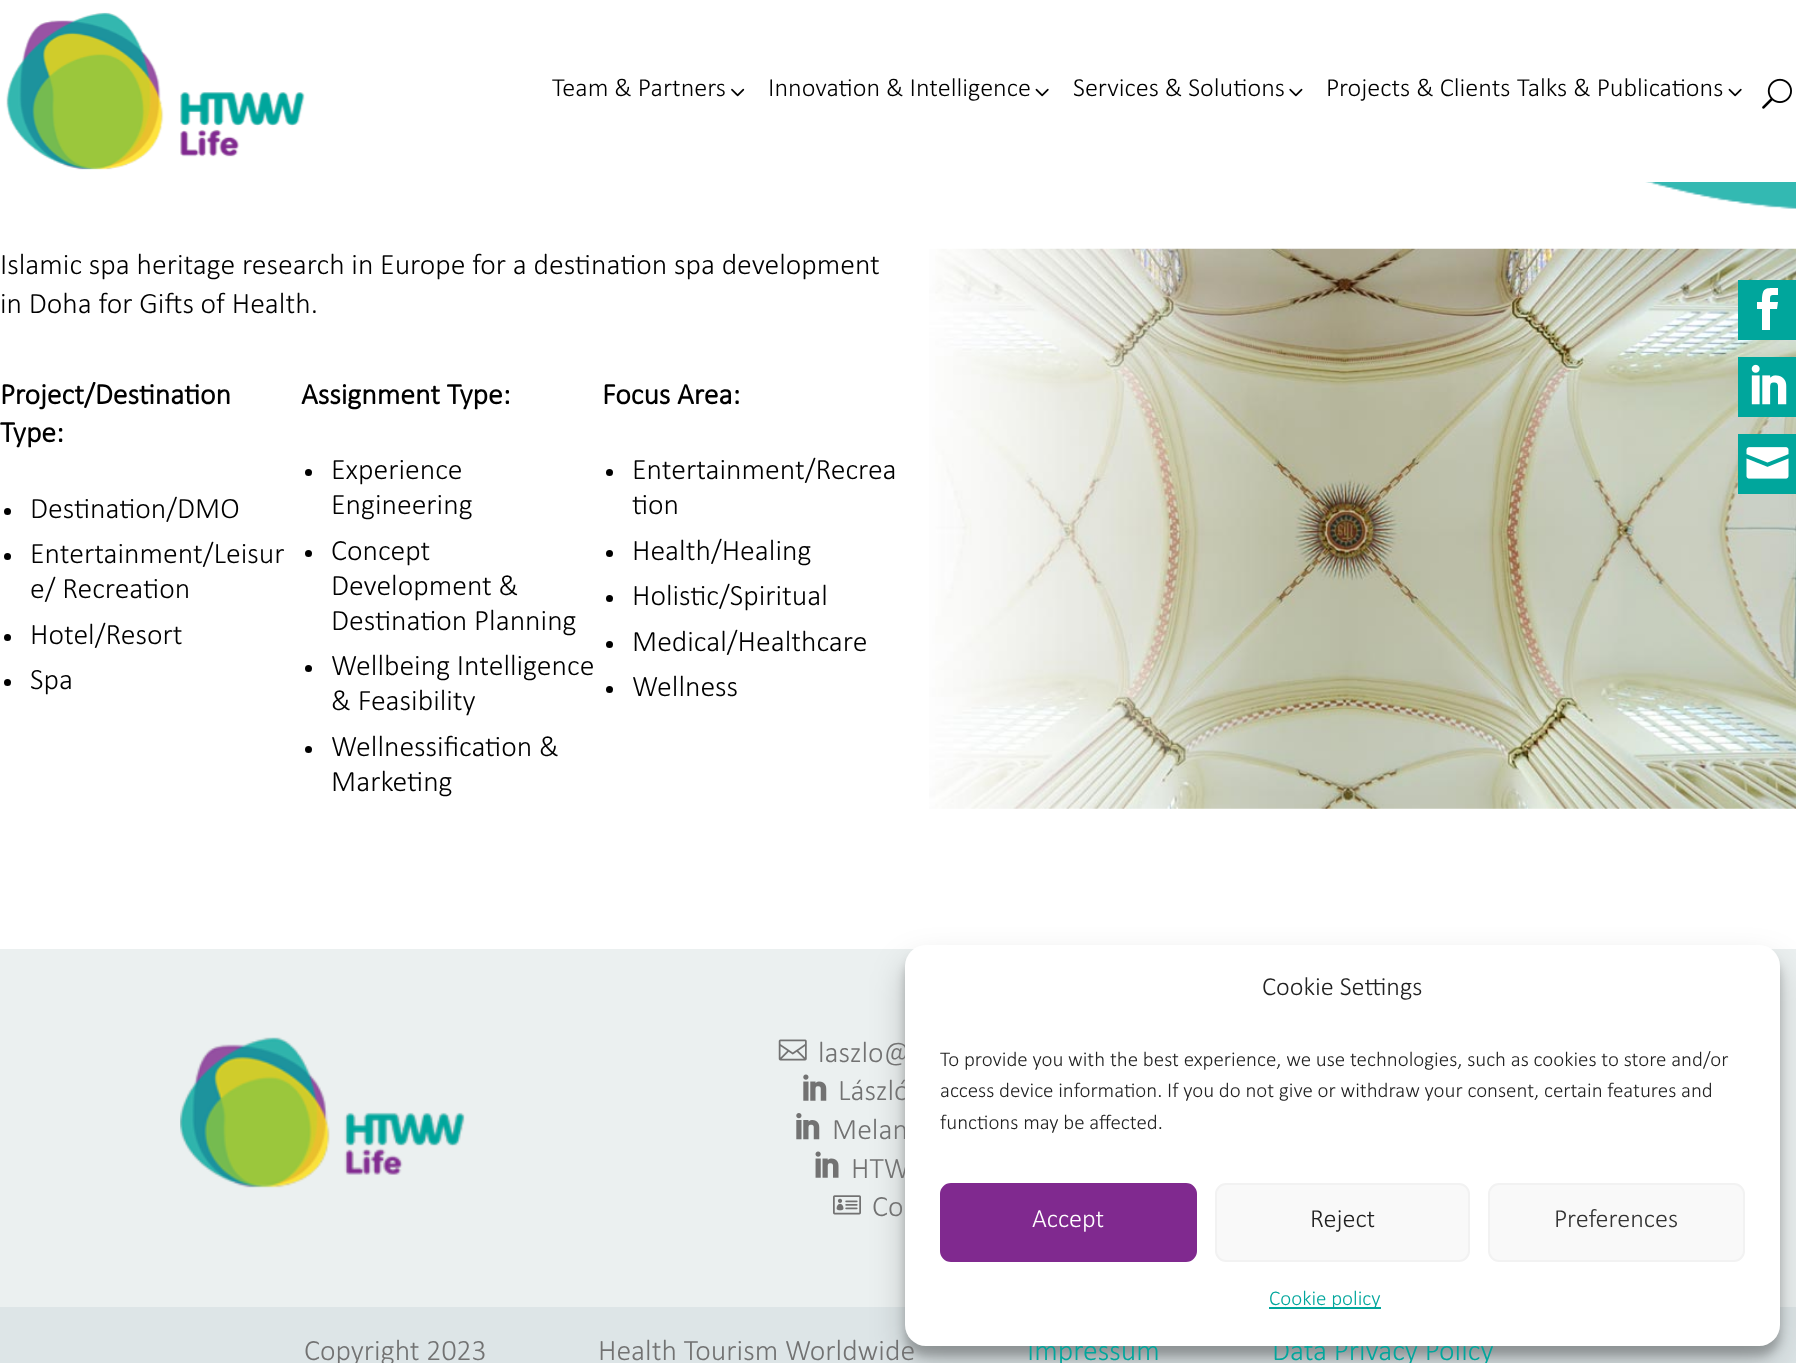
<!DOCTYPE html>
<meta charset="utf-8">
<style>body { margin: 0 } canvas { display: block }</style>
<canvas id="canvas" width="1796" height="1363"></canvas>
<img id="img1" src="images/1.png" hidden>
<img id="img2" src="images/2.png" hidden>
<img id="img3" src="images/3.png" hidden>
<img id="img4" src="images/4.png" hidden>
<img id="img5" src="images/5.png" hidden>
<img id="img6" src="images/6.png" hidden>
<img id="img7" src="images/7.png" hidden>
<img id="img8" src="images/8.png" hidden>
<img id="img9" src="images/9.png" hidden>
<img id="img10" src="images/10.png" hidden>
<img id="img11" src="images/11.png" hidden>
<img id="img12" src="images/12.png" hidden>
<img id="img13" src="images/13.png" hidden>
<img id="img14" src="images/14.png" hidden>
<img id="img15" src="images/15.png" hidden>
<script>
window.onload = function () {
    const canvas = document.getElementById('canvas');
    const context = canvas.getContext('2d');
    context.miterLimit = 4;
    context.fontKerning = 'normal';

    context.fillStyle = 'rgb(255, 255, 255)';
    context.fillRect(0, 0, 1796, 1363);
    context.drawImage(document.getElementById('img1'), 6, 12, 299, 158);
    context.drawImage(document.getElementById('img2'), 731, 88, 14, 9);
    context.drawImage(document.getElementById('img3'), 1035, 88, 14, 9);
    context.drawImage(document.getElementById('img4'), 1289, 88, 14, 9);
    context.drawImage(document.getElementById('img3'), 1728, 88, 14, 9);
    context.drawImage(document.getElementById('img5'), 1762, 78, 30, 31);
    context.drawImage(document.getElementById('img6'), 1645, 182, 151, 27);
    context.fillStyle = 'rgb(0, 0, 0)';
    context.beginPath();
    context.arc(7.5, 511.5, 3.5, 0, 2 * Math.PI);
    context.fill();
    context.beginPath();
    context.arc(7.5, 556.5, 3.5, 0, 2 * Math.PI);
    context.fill();
    context.beginPath();
    context.arc(7.5, 637.5, 3.5, 0, 2 * Math.PI);
    context.fill();
    context.beginPath();
    context.arc(7.5, 682.5, 3.5, 0, 2 * Math.PI);
    context.fill();
    context.beginPath();
    context.arc(308.5, 472.5, 3.5, 0, 2 * Math.PI);
    context.fill();
    context.beginPath();
    context.arc(308.5, 553.5, 3.5, 0, 2 * Math.PI);
    context.fill();
    context.beginPath();
    context.arc(308.5, 668.5, 3.5, 0, 2 * Math.PI);
    context.fill();
    context.beginPath();
    context.arc(308.5, 749.5, 3.5, 0, 2 * Math.PI);
    context.fill();
    context.beginPath();
    context.arc(609.5, 472.5, 3.5, 0, 2 * Math.PI);
    context.fill();
    context.beginPath();
    context.arc(609.5, 553.5, 3.5, 0, 2 * Math.PI);
    context.fill();
    context.beginPath();
    context.arc(609.5, 598.5, 3.5, 0, 2 * Math.PI);
    context.fill();
    context.beginPath();
    context.arc(609.5, 644.5, 3.5, 0, 2 * Math.PI);
    context.fill();
    context.beginPath();
    context.arc(609.5, 689.5, 3.5, 0, 2 * Math.PI);
    context.fill();
    context.drawImage(document.getElementById('img7'), 929, 248, 867, 561);
    context.fillStyle = 'rgb(0, 166, 156)';
    context.fillRect(1738, 280, 58, 60);
    context.fillStyle = 'rgb(255, 255, 255)';
    context.beginPath();
    context.moveTo(1762, 330);
    context.lineTo(1770, 330);
    context.lineTo(1770, 309);
    context.lineTo(1777, 309);
    context.lineTo(1778, 302);
    context.lineTo(1770, 302);
    context.bezierCurveTo(1770, 294, 1770, 295, 1778, 295);
    context.lineTo(1778, 288);
    context.bezierCurveTo(1765, 288, 1762, 287, 1762, 302);
    context.lineTo(1757, 302);
    context.lineTo(1757, 309);
    context.lineTo(1762, 309);
    context.closePath();
    context.fill();
    context.fillStyle = 'rgb(0, 166, 156)';
    context.fillRect(1738, 357, 58, 60);
    context.drawImage(document.getElementById('img8'), 1751, 364, 36, 41);
    context.fillRect(1738, 434, 58, 60);
    context.drawImage(document.getElementById('img9'), 1746, 447, 43, 32);
    context.fillStyle = 'rgb(235, 240, 240)';
    context.fillRect(0, 949, 1796, 358);
    context.drawImage(document.getElementById('img10'), 180, 1037, 285, 151);
    context.drawImage(document.getElementById('img11'), 778, 1039, 29, 22);
    context.drawImage(document.getElementById('img12'), 803, 1074, 24, 27);
    context.drawImage(document.getElementById('img13'), 796, 1113, 24, 27);
    context.drawImage(document.getElementById('img14'), 815, 1151, 24, 27);
    context.drawImage(document.getElementById('img15'), 833, 1195, 28, 20);
    context.fillStyle = 'rgb(221, 229, 231)';
    context.fillRect(0, 1307, 1796, 56);
    context.fillStyle = 'rgba(0, 0, 0, 0.23)';
    context.filter = 'blur(5px)';
    context.beginPath();
    context.roundRect(905, 956, 875, 400, 21);
    context.fill();
    context.filter = 'none';
    context.fillStyle = 'rgba(0, 0, 0, 0.19)';
    context.filter = 'blur(17.5px)';
    context.beginPath();
    context.roundRect(905, 963, 875, 400, 21);
    context.fill();
    context.filter = 'none';
    context.font = '300 26.25px Calibri';
    context.fillStyle = 'rgb(0, 0, 0)';
    context.fillText('Team & Partners', 552, 96);
    context.fillText('Innovation & Intelligence', 768, 96);
    context.fillText('Services & Solutions', 1073, 96);
    context.fillText('Projects & Clients', 1326, 96);
    context.fillText('Talks & Publications', 1517, 96);
    context.font = '300 29.75px Calibri';
    context.fillText('Islamic spa heritage research in Europe for a destination spa development', 0, 274);
    context.fillText('in Doha for Gifts of Health.', 0, 313);
    context.font = 'bold 29.75px Calibri';
    context.fillText('Project/Destination', 0, 404);
    context.fillText('Type:', 0, 442);
    context.font = '300 29.75px Calibri';
    context.fillText('Destination/DMO', 30, 518);
    context.fillText('Entertainment/Leisur', 30, 563);
    context.fillText('e/ Recreation', 30, 598);
    context.fillText('Hotel/Resort', 30, 644);
    context.fillText('Spa', 30, 689);
    context.font = 'bold 29.75px Calibri';
    context.fillText('Assignment Type:', 301, 404);
    context.font = '300 29.75px Calibri';
    context.fillText('Experience', 331, 479);
    context.fillText('Engineering', 331, 514);
    context.fillText('Concept', 331, 560);
    context.fillText('Development &', 331, 595);
    context.fillText('Destination Planning', 331, 630);
    context.fillText('Wellbeing Intelligence', 331, 675);
    context.fillText('& Feasibility', 331, 710);
    context.fillText('Wellnessification &', 331, 756);
    context.fillText('Marketing', 331, 791);
    context.font = 'bold 29.75px Calibri';
    context.fillText('Focus Area:', 602, 404);
    context.font = '300 29.75px Calibri';
    context.fillText('Entertainment/Recrea', 632, 479);
    context.fillText('tion', 632, 514);
    context.fillText('Health/Healing', 632, 560);
    context.fillText('Holistic/Spiritual', 632, 605);
    context.fillText('Medical/Healthcare', 632, 651);
    context.fillText('Wellness', 632, 696);
    context.fillStyle = 'rgb(114, 114, 114)';
    context.fillText('laszlo@', 818, 1062);
    context.fillText('László', 838, 1100);
    context.fillText('Melan', 832, 1139);
    context.fillText('HTW', 851, 1178);
    context.fillText('Co', 872, 1216);
    context.fillText('Copyright 2023', 304, 1360);
    context.fillText('Health Tourism Worldwide', 598, 1360);
    context.fillStyle = 'rgb(0, 166, 156)';
    context.fillText('Impressum', 1027, 1360);
    context.fillText('Data Privacy Policy', 1272, 1360);
    context.fillStyle = 'rgb(255, 255, 255)';
    context.beginPath();
    context.roundRect(905, 945, 875, 401, 21);
    context.fill();
    context.font = '300 26.25px Calibri';
    context.fillStyle = 'rgb(34, 34, 34)';
    context.fillText('Cookie Settings', 1262, 995);
    context.font = '300 21px Calibri';
    context.fillText('To provide you with the best experience, we use technologies, such as cookies to store and/or', 940, 1066);
    context.fillText('access device information. If you do not give or withdraw your consent, certain features and', 940, 1097);
    context.fillText('functions may be affected.', 940, 1129);
    context.fillStyle = 'rgb(128, 41, 143)';
    context.beginPath();
    context.roundRect(941, 1184, 255, 77, 10);
    context.fill();
    context.strokeStyle = 'rgb(128, 41, 143)';
    context.lineWidth = 2;
    context.stroke();
    context.font = '300 26.25px Calibri';
    context.fillStyle = 'rgb(255, 255, 255)';
    context.fillText('Accept', 1032, 1227);
    context.fillStyle = 'rgb(249, 249, 249)';
    context.beginPath();
    context.roundRect(1216, 1184, 253, 77, 10);
    context.fill();
    context.strokeStyle = 'rgb(242, 242, 242)';
    context.stroke();
    context.fillStyle = 'rgb(34, 34, 34)';
    context.fillText('Reject', 1310, 1227);
    context.fillStyle = 'rgb(249, 249, 249)';
    context.beginPath();
    context.roundRect(1489, 1184, 255, 77, 10);
    context.fill();
    context.stroke();
    context.fillStyle = 'rgb(51, 51, 51)';
    context.fillText('Preferences', 1554, 1227);
    context.fillStyle = 'rgb(0, 166, 156)';
    context.fillRect(1269, 1307, 112, 2);
    context.font = '300 21px Calibri';
    context.fillText('Cookie policy', 1269, 1305);
};
</script>
